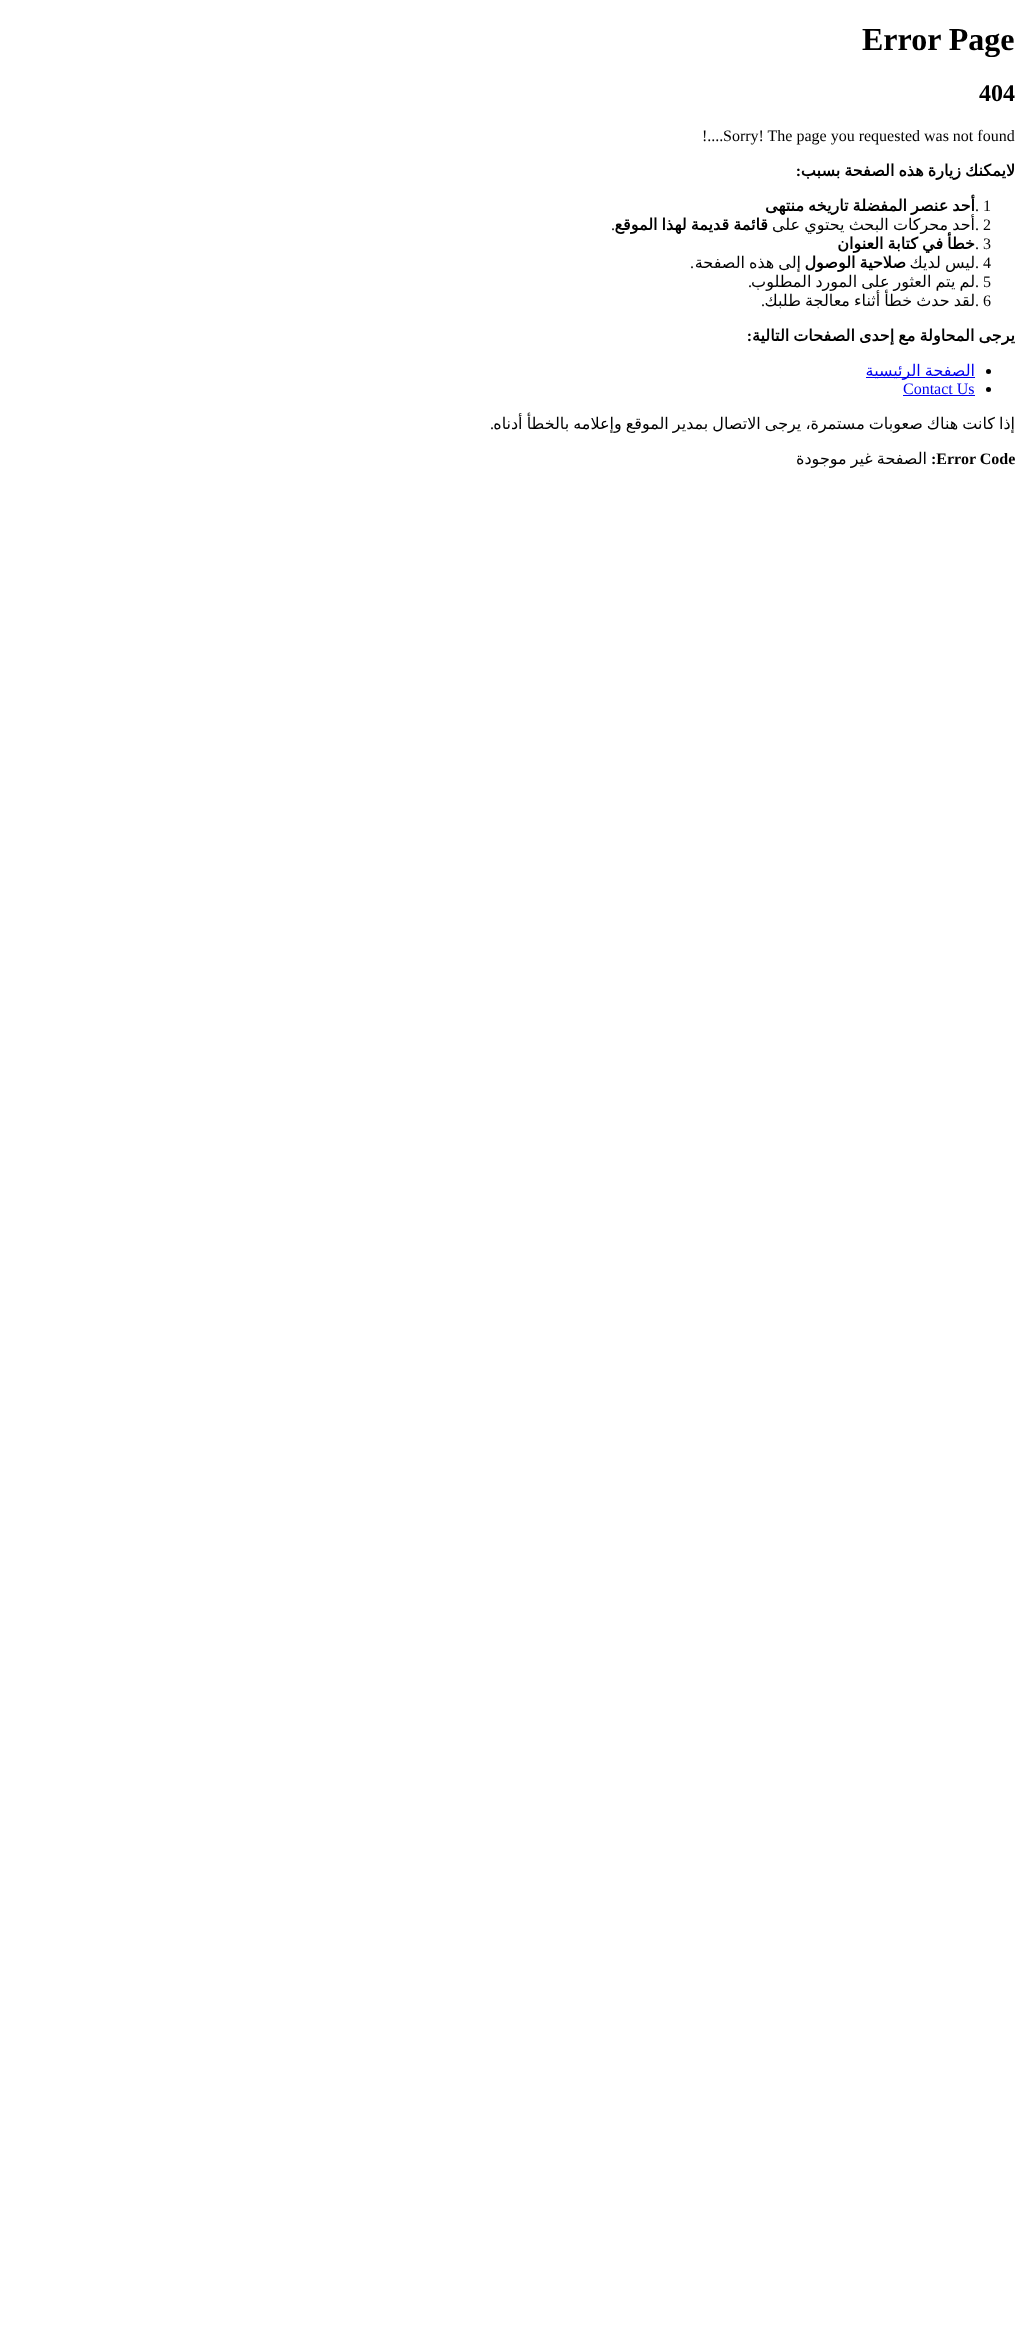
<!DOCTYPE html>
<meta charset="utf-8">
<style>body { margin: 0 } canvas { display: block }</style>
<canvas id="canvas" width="1023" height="2331"></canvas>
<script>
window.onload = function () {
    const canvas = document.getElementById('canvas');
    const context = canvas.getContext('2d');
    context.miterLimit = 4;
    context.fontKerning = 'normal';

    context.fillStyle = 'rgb(255, 255, 255)';
    context.fillRect(0, 0, 1023, 2331);
    context.fillStyle = 'rgb(0, 0, 0)';
    context.beginPath();
    context.arc(988.5, 371.5, 2.5, 0, 2 * Math.PI);
    context.fill();
    context.fillStyle = 'rgb(0, 0, 238)';
    context.fillRect(866, 377, 109, 1);
    context.fillStyle = 'rgb(0, 0, 0)';
    context.beginPath();
    context.arc(988.5, 389.5, 2.5, 0, 2 * Math.PI);
    context.fill();
    context.fillStyle = 'rgb(0, 0, 238)';
    context.fillRect(903, 395, 72, 1);
    context.font = 'bold 32px Liberation Serif';
    context.fillStyle = 'rgb(0, 0, 0)';
    context.fillText('Error Page', 862, 50);
    context.font = 'bold 24px Liberation Serif';
    context.fillText('404', 979, 101);
    context.font = '16px Liberation Serif';
    context.fillText('Sorry! The page you requested was not found', 723, 141);
    context.fillText('!....', 702, 141);
    context.wordSpacing = '-1px';
    context.direction = 'rtl';
    context.font = 'bold 16px DejaVu Sans';
    context.fillText('لايمكنك زيارة هذه الصفحة بسبب', 1015, 176);
    context.wordSpacing = '0px';
    context.font = 'bold 16px Liberation Serif';
    context.fillText(':', 801, 176);
    context.direction = 'ltr';
    context.font = '16px Liberation Serif';
    context.fillText('. 1', 975, 211);
    context.wordSpacing = '-1px';
    context.direction = 'rtl';
    context.font = 'bold 16px DejaVu Sans';
    context.fillText('أحد عنصر المفضلة تاريخه منتهى', 975, 211);
    context.wordSpacing = '0px';
    context.direction = 'ltr';
    context.font = '16px Liberation Serif';
    context.fillText('. 2', 975, 230);
    context.wordSpacing = '-1px';
    context.direction = 'rtl';
    context.font = '16px DejaVu Sans';
    context.fillText('أحد محركات البحث يحتوي على', 975, 230);
    context.font = 'bold 16px DejaVu Sans';
    context.fillText('قائمة قديمة لهذا الموقع', 768, 230);
    context.wordSpacing = '0px';
    context.direction = 'ltr';
    context.font = '16px Liberation Serif';
    context.fillText('.', 611, 230);
    context.fillText('. 3', 975, 249);
    context.wordSpacing = '-1px';
    context.direction = 'rtl';
    context.font = 'bold 16px DejaVu Sans';
    context.fillText('خطأ في كتابة العنوان', 975, 249);
    context.wordSpacing = '0px';
    context.direction = 'ltr';
    context.font = '16px Liberation Serif';
    context.fillText('. 4', 975, 268);
    context.wordSpacing = '-1px';
    context.direction = 'rtl';
    context.font = '16px DejaVu Sans';
    context.fillText('ليس لديك', 975, 268);
    context.font = 'bold 16px DejaVu Sans';
    context.fillText('صلاحية الوصول', 906, 268);
    context.font = '16px DejaVu Sans';
    context.fillText('إلى هذه الصفحة', 801, 268);
    context.wordSpacing = '0px';
    context.font = '16px Liberation Serif';
    context.fillText('.', 694, 268);
    context.direction = 'ltr';
    context.fillText('. 5', 975, 287);
    context.wordSpacing = '-1px';
    context.direction = 'rtl';
    context.font = '16px DejaVu Sans';
    context.fillText('لم يتم العثور على المورد المطلوب', 975, 287);
    context.wordSpacing = '0px';
    context.font = '16px Liberation Serif';
    context.fillText('.', 752, 287);
    context.direction = 'ltr';
    context.fillText('. 6', 975, 306);
    context.wordSpacing = '-1px';
    context.direction = 'rtl';
    context.font = '16px DejaVu Sans';
    context.fillText('لقد حدث خطأ أثناء معالجة طلبك', 975, 306);
    context.wordSpacing = '0px';
    context.font = '16px Liberation Serif';
    context.fillText('.', 765, 306);
    context.wordSpacing = '-1px';
    context.font = 'bold 16px DejaVu Sans';
    context.fillText('يرجى المحاولة مع إحدى الصفحات التالية', 1015, 341);
    context.wordSpacing = '0px';
    context.font = 'bold 16px Liberation Serif';
    context.fillText(':', 752, 341);
    context.wordSpacing = '-1px';
    context.font = '16px DejaVu Sans';
    context.fillStyle = 'rgb(0, 0, 238)';
    context.fillText('الصفحة الرئيسية', 975, 376);
    context.wordSpacing = '0px';
    context.direction = 'ltr';
    context.font = '16px Liberation Serif';
    context.fillText('Contact Us', 903, 394);
    context.wordSpacing = '-1px';
    context.direction = 'rtl';
    context.font = '16px DejaVu Sans';
    context.fillStyle = 'rgb(0, 0, 0)';
    context.fillText('إذا كانت هناك صعوبات مستمرة، يرجى الاتصال بمدير الموقع وإعلامه بالخطأ أدناه', 1015, 429);
    context.wordSpacing = '0px';
    context.font = '16px Liberation Serif';
    context.fillText('.', 494, 429);
    context.direction = 'ltr';
    context.font = 'bold 16px Liberation Serif';
    context.fillText(':Error Code', 931, 464);
    context.wordSpacing = '-1px';
    context.direction = 'rtl';
    context.font = '16px DejaVu Sans';
    context.fillText('الصفحة غير موجودة', 927, 464);
};
</script>
